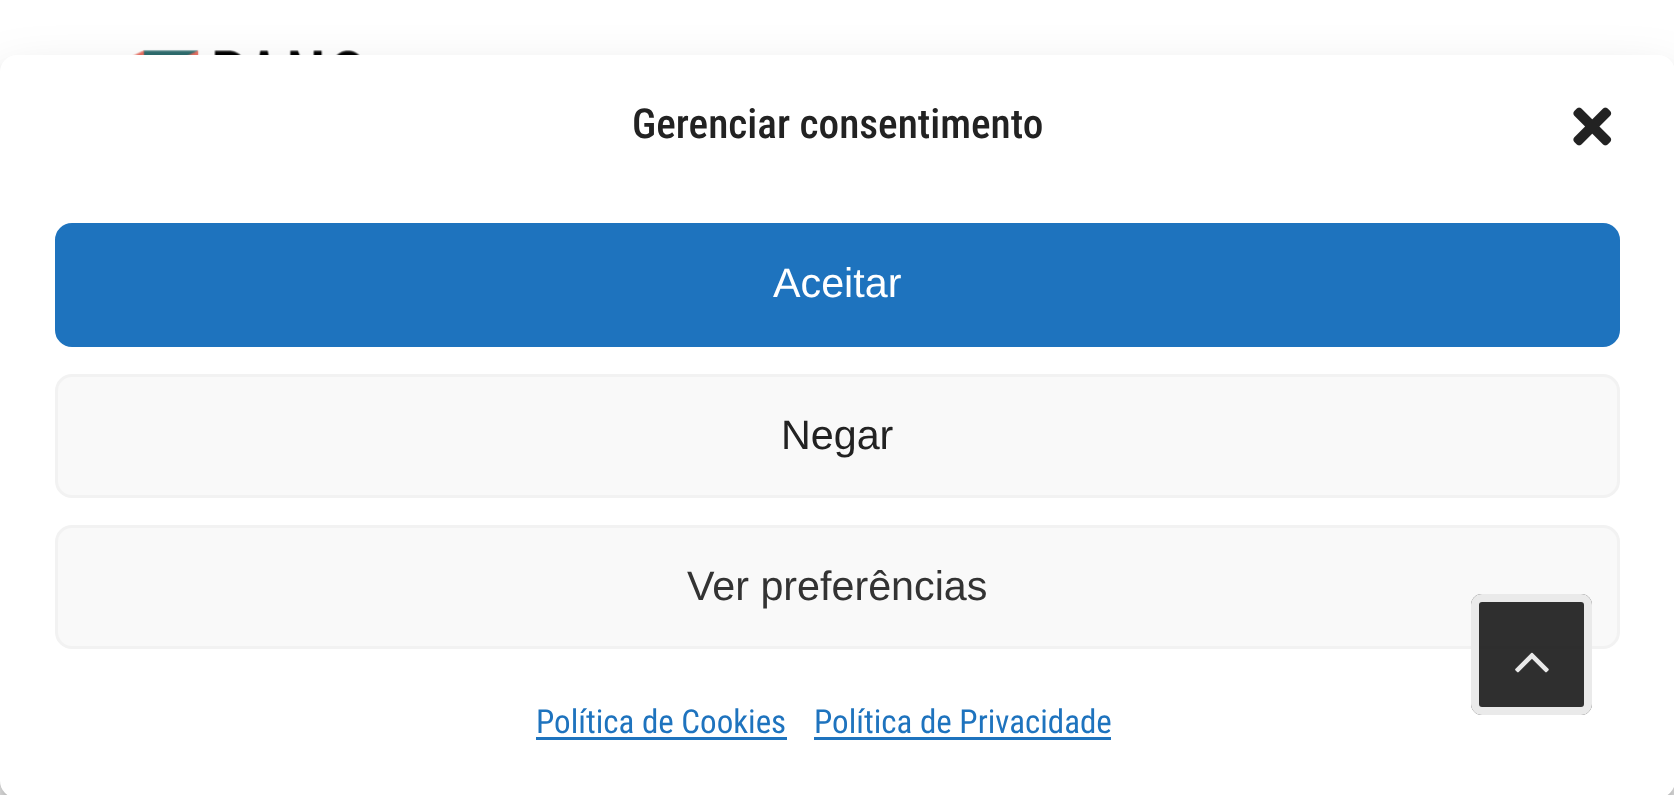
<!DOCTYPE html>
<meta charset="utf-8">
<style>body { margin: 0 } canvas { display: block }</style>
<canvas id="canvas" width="1674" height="795"></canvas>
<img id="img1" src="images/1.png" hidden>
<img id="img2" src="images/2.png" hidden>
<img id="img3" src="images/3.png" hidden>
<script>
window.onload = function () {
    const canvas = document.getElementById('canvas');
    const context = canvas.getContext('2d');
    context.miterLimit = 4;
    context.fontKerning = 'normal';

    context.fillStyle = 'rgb(255, 255, 255)';
    context.fillRect(0, 0, 1674, 795);
    context.drawImage(document.getElementById('img1'), 132, 49, 228, 6);
    context.fillStyle = 'rgba(0, 0, 0, 0.23)';
    context.filter = 'blur(8px)';
    context.beginPath();
    context.roundRect(0, 72, 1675, 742, 17);
    context.fill();
    context.filter = 'none';
    context.fillStyle = 'rgba(0, 0, 0, 0.19)';
    context.filter = 'blur(27.5px)';
    context.beginPath();
    context.roundRect(0, 83, 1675, 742, 17);
    context.fill();
    context.filter = 'none';
    context.fillStyle = 'rgb(255, 255, 255)';
    context.beginPath();
    context.roundRect(0, 55, 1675, 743, 17);
    context.fill();
    context.drawImage(document.getElementById('img2'), 1573, 107, 39, 39);
    context.fillStyle = 'rgb(30, 115, 190)';
    context.beginPath();
    context.roundRect(56.5, 224.5, 1562, 121, 15.5);
    context.fill();
    context.strokeStyle = 'rgb(30, 115, 190)';
    context.lineWidth = 3;
    context.stroke();
    context.fillStyle = 'rgb(249, 249, 249)';
    context.beginPath();
    context.roundRect(56.5, 375.5, 1562, 121, 15.5);
    context.fill();
    context.strokeStyle = 'rgb(242, 242, 242)';
    context.stroke();
    context.beginPath();
    context.roundRect(56.5, 526.5, 1562, 121, 15.5);
    context.fill();
    context.stroke();
    context.fillStyle = 'rgb(30, 115, 190)';
    context.fillRect(536, 737, 251, 3);
    context.fillRect(814, 737, 297, 3);
    context.fillStyle = 'rgba(24, 24, 24, 0.9)';
    context.beginPath();
    context.roundRect(1471, 594, 121, 121, 11);
    context.fill();
    context.beginPath();
    context.roundRect(1475, 598, 113, 113, 7);
    context.strokeStyle = 'rgba(255, 255, 255, 0.9)';
    context.lineWidth = 8;
    context.stroke();
    context.drawImage(document.getElementById('img3'), 1515, 652, 34, 21);
    context.font = '500 41.25px Roboto Condensed';
    context.fillStyle = 'rgb(34, 34, 34)';
    context.fillText('Gerenciar consentimento', 632, 138);
    context.font = '41.25px Liberation Sans';
    context.fillStyle = 'rgb(255, 255, 255)';
    context.fillText('Aceitar', 773, 297);
    context.fillStyle = 'rgb(34, 34, 34)';
    context.fillText('Negar', 781, 449);
    context.fillStyle = 'rgb(51, 51, 51)';
    context.fillText('Ver preferências', 687, 600);
    context.font = '33px Roboto Condensed';
    context.fillStyle = 'rgb(30, 115, 190)';
    context.fillText('Política de Cookies', 536, 733);
    context.fillText('Política de Privacidade', 814, 733);
};
</script>
